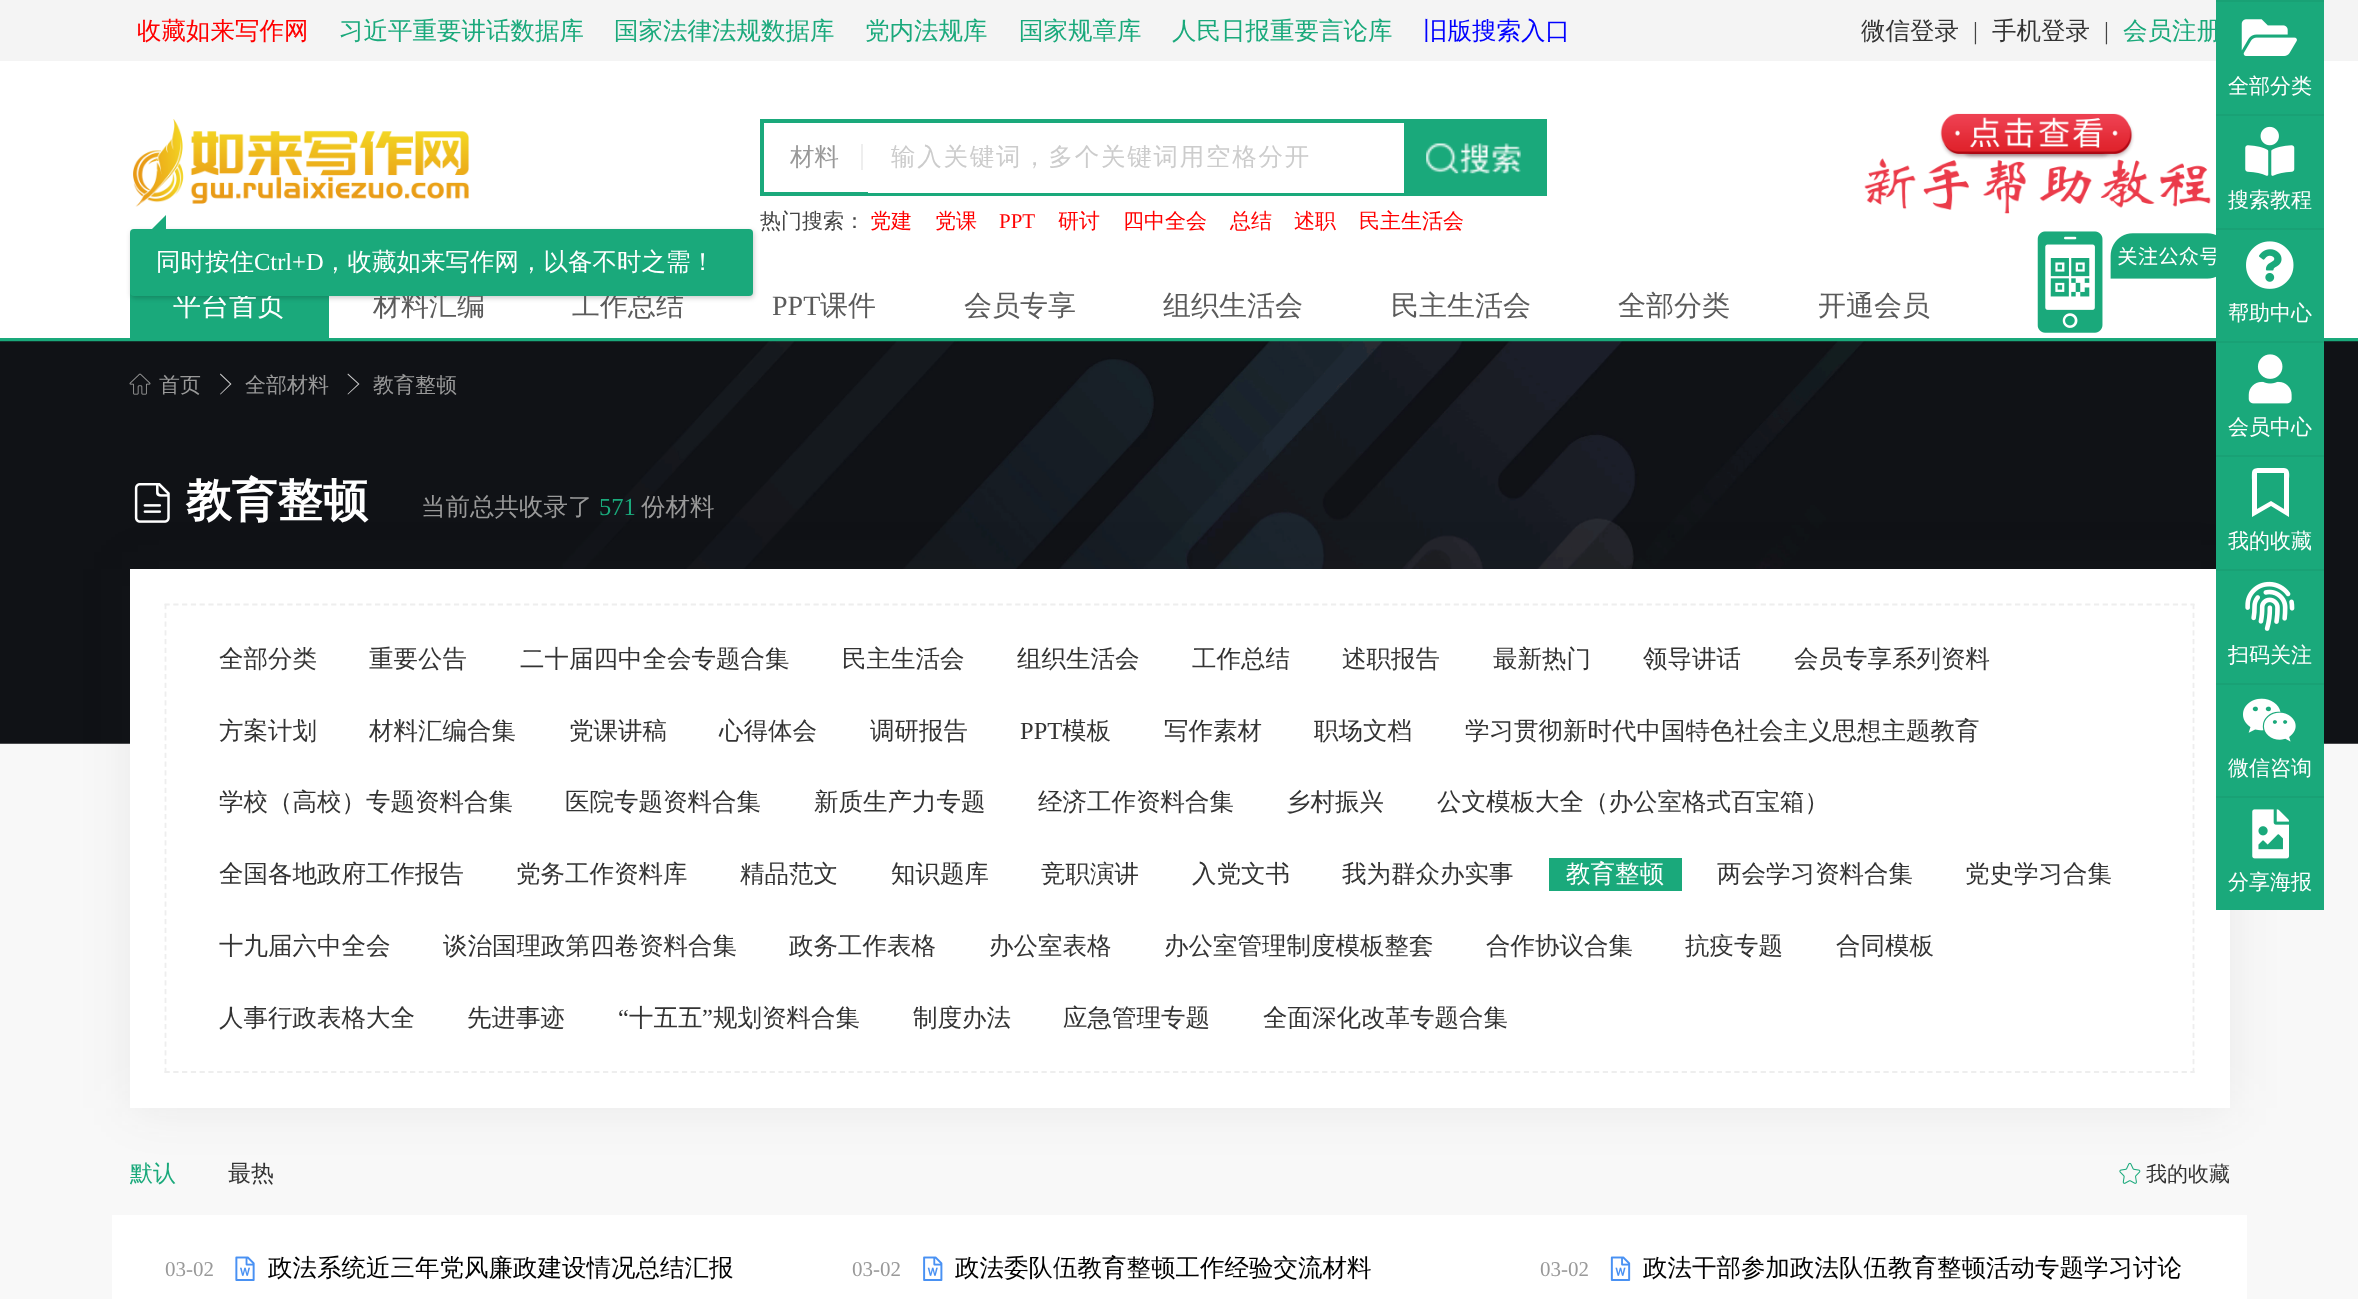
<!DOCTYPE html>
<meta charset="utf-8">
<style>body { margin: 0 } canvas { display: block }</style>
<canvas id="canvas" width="2358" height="1299"></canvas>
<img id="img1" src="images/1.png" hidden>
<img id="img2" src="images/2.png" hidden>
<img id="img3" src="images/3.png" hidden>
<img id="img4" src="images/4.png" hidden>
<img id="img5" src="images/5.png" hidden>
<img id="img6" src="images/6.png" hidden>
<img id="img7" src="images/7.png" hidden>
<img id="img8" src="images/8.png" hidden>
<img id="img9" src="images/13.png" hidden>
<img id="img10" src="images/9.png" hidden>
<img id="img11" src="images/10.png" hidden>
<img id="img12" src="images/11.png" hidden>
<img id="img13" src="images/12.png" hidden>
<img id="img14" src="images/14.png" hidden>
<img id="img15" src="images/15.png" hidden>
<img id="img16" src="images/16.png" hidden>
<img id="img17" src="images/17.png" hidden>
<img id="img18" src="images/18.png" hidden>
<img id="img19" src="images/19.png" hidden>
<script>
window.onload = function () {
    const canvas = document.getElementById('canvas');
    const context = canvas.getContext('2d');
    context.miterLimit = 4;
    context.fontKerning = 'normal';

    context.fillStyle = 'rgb(248, 248, 248)';
    context.fillRect(0, 0, 2358, 1299);
    context.fillStyle = 'rgb(244, 244, 244)';
    context.fillRect(0, 0, 2358, 61);
    context.fillStyle = 'rgb(255, 255, 255)';
    context.fillRect(0, 61, 2358, 277);
    context.drawImage(document.getElementById('img1'), 133, 119, 336, 88);
    context.strokeStyle = 'rgb(26, 169, 123)';
    context.lineWidth = 4;
    context.strokeRect(762, 121, 783, 73);
    context.fillStyle = 'rgb(238, 238, 238)';
    context.fillRect(861, 144, 2, 26);
    context.fillStyle = 'rgb(255, 255, 255)';
    context.fillRect(868, 192, 536, 1);
    context.fillStyle = 'rgb(26, 169, 123)';
    context.fillRect(1404, 123, 139, 69);
    context.drawImage(document.getElementById('img2'), 1426, 143, 95, 31);
    context.drawImage(document.getElementById('img3'), 1864, 113, 347, 101);
    context.fillRect(0, 338, 2358, 4);
    context.fillRect(130, 292, 199, 46);
    context.drawImage(document.getElementById('img4'), 2037, 231, 66, 102);
    context.drawImage(document.getElementById('img5'), 2110, 233, 106, 46);
    context.fillRect(2216, 2, 108, 112);
    context.fillStyle = 'rgb(25, 161, 117)';
    context.fillRect(2216, 0, 108, 2);
    context.drawImage(document.getElementById('img6'), 2241, 19, 56, 37);
    context.fillStyle = 'rgb(26, 169, 123)';
    context.fillRect(2216, 116, 108, 112);
    context.fillStyle = 'rgb(25, 161, 117)';
    context.fillRect(2216, 114, 108, 2);
    context.drawImage(document.getElementById('img7'), 2245, 126, 50, 50);
    context.fillStyle = 'rgb(26, 169, 123)';
    context.fillRect(2216, 230, 108, 108);
    context.fillStyle = 'rgb(25, 161, 117)';
    context.fillRect(2216, 228, 108, 2);
    context.drawImage(document.getElementById('img8'), 2246, 241, 48, 48);
    context.drawImage(document.getElementById('img9'), 0, 341, 2358, 403);
    context.fillStyle = 'rgb(26, 169, 123)';
    context.fillRect(2216, 343, 108, 112);
    context.fillStyle = 'rgb(25, 161, 117)';
    context.fillRect(2216, 341, 108, 2);
    context.drawImage(document.getElementById('img10'), 2248, 354, 44, 50);
    context.fillStyle = 'rgba(53, 53, 53, 0.08)';
    context.filter = 'blur(26px)';
    context.beginPath();
    context.rect(130, 569, 2100, 539);
    context.fill();
    context.filter = 'none';
    context.fillStyle = 'rgb(26, 169, 123)';
    context.fillRect(2216, 457, 108, 112);
    context.fillStyle = 'rgb(25, 161, 117)';
    context.fillRect(2216, 455, 108, 2);
    context.fillStyle = 'rgb(255, 255, 255)';
    context.beginPath();
    context.moveTo(2284, 468);
    context.bezierCurveTo(2291, 468, 2289, 477, 2289, 480);
    context.lineTo(2289, 517);
    context.lineTo(2271, 506);
    context.lineTo(2252, 517);
    context.lineTo(2252, 480);
    context.bezierCurveTo(2252, 470, 2251, 468, 2261, 468);
    context.closePath();
    context.moveTo(2284, 509);
    context.lineTo(2284, 473);
    context.lineTo(2257, 473);
    context.lineTo(2257, 509);
    context.lineTo(2271, 501);
    context.closePath();
    context.fill();
    context.fillRect(130, 569, 2100, 539);
    context.fillStyle = 'rgb(26, 169, 123)';
    context.fillRect(2216, 571, 108, 112);
    context.fillStyle = 'rgb(25, 161, 117)';
    context.fillRect(2216, 569, 108, 2);
    context.drawImage(document.getElementById('img11'), 2245, 581, 50, 50);
    context.fillStyle = 'rgb(26, 169, 123)';
    context.fillRect(2216, 685, 108, 111);
    context.fillStyle = 'rgb(25, 161, 117)';
    context.fillRect(2216, 683, 108, 2);
    context.drawImage(document.getElementById('img12'), 2243, 698, 53, 44);
    context.fillStyle = 'rgb(26, 169, 123)';
    context.fillRect(2216, 798, 108, 112);
    context.fillStyle = 'rgb(25, 161, 117)';
    context.fillRect(2216, 796, 108, 2);
    context.drawImage(document.getElementById('img13'), 2252, 809, 37, 50);
    context.fillStyle = 'rgba(0, 0, 0, 0.2)';
    context.filter = 'blur(2.5px)';
    context.beginPath();
    context.roundRect(131, 231, 623, 67, 4);
    context.fill();
    context.filter = 'none';
    context.drawImage(document.getElementById('img14'), 129, 373, 22, 22);
    context.fillStyle = 'rgb(204, 204, 204)';
    context.beginPath();
    context.moveTo(220.5, 373.5);
    context.lineTo(220, 374.5);
    context.lineTo(230, 384);
    context.lineTo(220, 394);
    context.lineTo(220.5, 394.5);
    context.lineTo(231.5, 384);
    context.closePath();
    context.fill();
    context.beginPath();
    context.moveTo(348, 373.5);
    context.lineTo(347.5, 374.5);
    context.lineTo(358, 384);
    context.lineTo(347.5, 394);
    context.lineTo(348, 394.5);
    context.lineTo(359.5, 384);
    context.closePath();
    context.fill();
    context.drawImage(document.getElementById('img15'), 134, 483, 36, 40);
    context.beginPath();
    context.moveTo(164.5, 604.5);
    context.lineTo(2194.5, 604.5);
    context.strokeStyle = 'rgb(238, 238, 238)';
    context.lineWidth = 1.8;
    context.setLineDash([5.25, 3.52]);
    context.stroke();
    context.beginPath();
    context.moveTo(2193.5, 604);
    context.lineTo(2193.5, 1073);
    context.setLineDash([5.25, 3.5]);
    context.stroke();
    context.beginPath();
    context.moveTo(164.5, 1072);
    context.lineTo(2194.5, 1072);
    context.setLineDash([5.25, 3.52]);
    context.stroke();
    context.beginPath();
    context.moveTo(165.5, 604);
    context.lineTo(165.5, 1073);
    context.setLineDash([5.25, 3.5]);
    context.stroke();
    context.fillStyle = 'rgb(26, 169, 123)';
    context.fillRect(1549, 858, 133, 33);
    context.drawImage(document.getElementById('img16'), 2119, 1162, 22, 22);
    context.fillStyle = 'rgb(255, 255, 255)';
    context.fillRect(112, 1215, 2135, 84);
    context.drawImage(document.getElementById('img17'), 235, 1256, 20, 25);
    context.drawImage(document.getElementById('img18'), 923, 1256, 20, 25);
    context.drawImage(document.getElementById('img19'), 1610, 1256, 21, 25);
    context.font = '500 24.5px WenQuanYi Zen Hei';
    context.fillStyle = 'rgb(255, 0, 0)';
    context.fillText('收藏如来写作网', 137, 39);
    context.fillStyle = 'rgb(26, 169, 123)';
    context.fillText('习近平重要讲话数据库', 339, 39);
    context.fillText('国家法律法规数据库', 614, 39);
    context.fillText('党内法规库', 865, 39);
    context.fillText('国家规章库', 1019, 39);
    context.fillText('人民日报重要言论库', 1172, 39);
    context.fillStyle = 'rgb(0, 0, 255)';
    context.fillText('旧版搜索入口', 1423, 39);
    context.fillStyle = 'rgb(51, 51, 51)';
    context.fillText('微信登录', 1861, 39);
    context.font = '24.5px Liberation Serif';
    context.fillStyle = 'rgb(68, 68, 68)';
    context.fillText('|', 1973, 39);
    context.font = '500 24.5px WenQuanYi Zen Hei';
    context.fillStyle = 'rgb(51, 51, 51)';
    context.fillText('手机登录', 1992, 39);
    context.font = '24.5px Liberation Serif';
    context.fillStyle = 'rgb(68, 68, 68)';
    context.fillText('|', 2104, 39);
    context.font = '500 24.5px WenQuanYi Zen Hei';
    context.fillStyle = 'rgb(26, 169, 123)';
    context.fillText('会员注册', 2123, 39);
    context.fillStyle = 'rgb(153, 153, 153)';
    context.fillText('材料', 790, 165);
    context.letterSpacing = '1.75px';
    context.fillStyle = 'rgb(204, 204, 204)';
    context.fillText('输入关键词，多个关键词用空格分开', 891, 165);
    context.letterSpacing = '0px';
    context.font = '500 21px WenQuanYi Zen Hei';
    context.fillStyle = 'rgb(68, 68, 68)';
    context.fillText('热门搜索：', 760, 228);
    context.fillStyle = 'rgb(255, 0, 0)';
    context.fillText('党建', 870, 228);
    context.fillText('党课', 935, 228);
    context.font = '21px Liberation Serif';
    context.fillText('PPT', 999, 228);
    context.font = '500 21px WenQuanYi Zen Hei';
    context.fillText('研讨', 1058, 228);
    context.fillText('四中全会', 1123, 228);
    context.fillText('总结', 1230, 228);
    context.fillText('述职', 1294, 228);
    context.fillText('民主生活会', 1359, 228);
    context.font = '500 28px WenQuanYi Zen Hei';
    context.fillStyle = 'rgb(255, 255, 255)';
    context.fillText('平台首页', 173, 315);
    context.fillStyle = 'rgb(91, 91, 91)';
    context.fillText('材料汇编', 373, 315);
    context.fillText('工作总结', 572, 315);
    context.font = '28px Liberation Serif';
    context.fillText('PPT', 772, 315);
    context.font = '500 28px WenQuanYi Zen Hei';
    context.fillText('课件', 820, 315);
    context.fillText('会员专享', 964, 315);
    context.fillText('组织生活会', 1163, 315);
    context.fillText('民主生活会', 1391, 315);
    context.fillText('全部分类', 1618, 315);
    context.fillText('开通会员', 1818, 315);
    context.font = '500 21px WenQuanYi Zen Hei';
    context.fillStyle = 'rgb(255, 255, 255)';
    context.fillText('全部分类', 2228, 93);
    context.fillText('搜索教程', 2228, 207);
    context.fillText('帮助中心', 2228, 320);
    context.fillText('会员中心', 2228, 434);
    context.fillText('我的收藏', 2228, 548);
    context.fillText('扫码关注', 2228, 662);
    context.fillText('微信咨询', 2228, 775);
    context.fillText('分享海报', 2228, 889);
    context.fillStyle = 'rgb(26, 169, 123)';
    context.beginPath();
    context.roundRect(130, 229, 623, 67, 4);
    context.fill();
    context.beginPath();
    context.moveTo(166, 215);
    context.lineTo(166, 243);
    context.lineTo(152, 229);
    context.closePath();
    context.fill();
    context.font = '500 24.5px WenQuanYi Zen Hei';
    context.fillStyle = 'rgb(255, 255, 255)';
    context.fillText('同时按住', 156, 270);
    context.font = '24.5px Liberation Serif';
    context.fillText('Ctrl+D', 254, 270);
    context.font = '500 24.5px WenQuanYi Zen Hei';
    context.fillText('，收藏如来写作网，以备不时之需！', 323, 270);
    context.font = '500 21px WenQuanYi Zen Hei';
    context.fillStyle = 'rgb(153, 153, 153)';
    context.fillText('首页', 159, 392);
    context.fillText('全部材料', 245, 392);
    context.fillText('教育整顿', 373, 392);
    context.font = 'bold 45.5px WenQuanYi Zen Hei';
    context.fillStyle = 'rgb(255, 255, 255)';
    context.fillText('教育整顿', 186, 516);
    context.font = '500 24.5px WenQuanYi Zen Hei';
    context.fillStyle = 'rgb(153, 153, 153)';
    context.fillText('当前总共收录了', 421, 515);
    context.font = '24.5px Liberation Serif';
    context.fillStyle = 'rgb(26, 169, 123)';
    context.fillText('571', 599, 515);
    context.font = '500 24.5px WenQuanYi Zen Hei';
    context.fillStyle = 'rgb(153, 153, 153)';
    context.fillText('份材料', 641, 515);
    context.fillStyle = 'rgb(51, 51, 51)';
    context.fillText('全部分类', 219, 667);
    context.fillText('重要公告', 369, 667);
    context.fillText('二十届四中全会专题合集', 520, 667);
    context.fillText('民主生活会', 842, 667);
    context.fillText('组织生活会', 1017, 667);
    context.fillText('工作总结', 1192, 667);
    context.fillText('述职报告', 1342, 667);
    context.fillText('最新热门', 1493, 667);
    context.fillText('领导讲话', 1643, 667);
    context.fillText('会员专享系列资料', 1794, 667);
    context.fillText('方案计划', 219, 739);
    context.fillText('材料汇编合集', 369, 739);
    context.fillText('党课讲稿', 569, 739);
    context.fillText('心得体会', 719, 739);
    context.fillText('调研报告', 870, 739);
    context.font = '24.5px Liberation Serif';
    context.fillText('PPT', 1020, 739);
    context.font = '500 24.5px WenQuanYi Zen Hei';
    context.fillText('模板', 1062, 739);
    context.fillText('写作素材', 1164, 739);
    context.fillText('职场文档', 1314, 739);
    context.fillText('学习贯彻新时代中国特色社会主义思想主题教育', 1465, 739);
    context.fillText('学校（高校）专题资料合集', 219, 810);
    context.fillText('医院专题资料合集', 565, 810);
    context.fillText('新质生产力专题', 814, 810);
    context.fillText('经济工作资料合集', 1038, 810);
    context.fillText('乡村振兴', 1286, 810);
    context.fillText('公文模板大全（办公室格式百宝箱）', 1437, 810);
    context.fillText('全国各地政府工作报告', 219, 882);
    context.fillText('党务工作资料库', 516, 882);
    context.fillText('精品范文', 740, 882);
    context.fillText('知识题库', 891, 882);
    context.fillText('竞职演讲', 1041, 882);
    context.fillText('入党文书', 1192, 882);
    context.fillText('我为群众办实事', 1342, 882);
    context.fillStyle = 'rgb(255, 255, 255)';
    context.fillText('教育整顿', 1566, 882);
    context.fillStyle = 'rgb(51, 51, 51)';
    context.fillText('两会学习资料合集', 1717, 882);
    context.fillText('党史学习合集', 1965, 882);
    context.fillText('十九届六中全会', 219, 954);
    context.fillText('谈治国理政第四卷资料合集', 443, 954);
    context.fillText('政务工作表格', 789, 954);
    context.fillText('办公室表格', 989, 954);
    context.fillText('办公室管理制度模板整套', 1164, 954);
    context.fillText('合作协议合集', 1486, 954);
    context.fillText('抗疫专题', 1685, 954);
    context.fillText('合同模板', 1836, 954);
    context.fillText('人事行政表格大全', 219, 1026);
    context.fillText('先进事迹', 467, 1026);
    context.font = '24.5px Liberation Serif';
    context.fillText('“', 618, 1026);
    context.font = '500 24.5px WenQuanYi Zen Hei';
    context.fillText('十五五', 629, 1026);
    context.font = '24.5px Liberation Serif';
    context.fillText('”', 702, 1026);
    context.font = '500 24.5px WenQuanYi Zen Hei';
    context.fillText('规划资料合集', 713, 1026);
    context.fillText('制度办法', 913, 1026);
    context.fillText('应急管理专题', 1063, 1026);
    context.fillText('全面深化改革专题合集', 1263, 1026);
    context.font = '500 23px WenQuanYi Zen Hei';
    context.fillStyle = 'rgb(26, 169, 123)';
    context.fillText('默认', 130, 1181);
    context.fillStyle = 'rgb(51, 51, 51)';
    context.fillText('最热', 228, 1181);
    context.font = '500 21px WenQuanYi Zen Hei';
    context.fillText('我的收藏', 2146, 1181);
    context.font = '21px Liberation Serif';
    context.fillStyle = 'rgb(153, 153, 153)';
    context.fillText('03-02', 165, 1276);
    context.font = '500 24.5px WenQuanYi Zen Hei';
    context.fillStyle = 'rgb(0, 0, 0)';
    context.fillText('政法系统近三年党风廉政建设情况总结汇报', 268, 1276);
    context.font = '21px Liberation Serif';
    context.fillStyle = 'rgb(153, 153, 153)';
    context.fillText('03-02', 852, 1276);
    context.font = '500 24.5px WenQuanYi Zen Hei';
    context.fillStyle = 'rgb(0, 0, 0)';
    context.fillText('政法委队伍教育整顿工作经验交流材料', 955, 1276);
    context.font = '21px Liberation Serif';
    context.fillStyle = 'rgb(153, 153, 153)';
    context.fillText('03-02', 1540, 1276);
    context.font = '500 24.5px WenQuanYi Zen Hei';
    context.fillStyle = 'rgb(0, 0, 0)';
    context.fillText('政法干部参加政法队伍教育整顿活动专题学习讨论', 1643, 1276);
};
</script>
